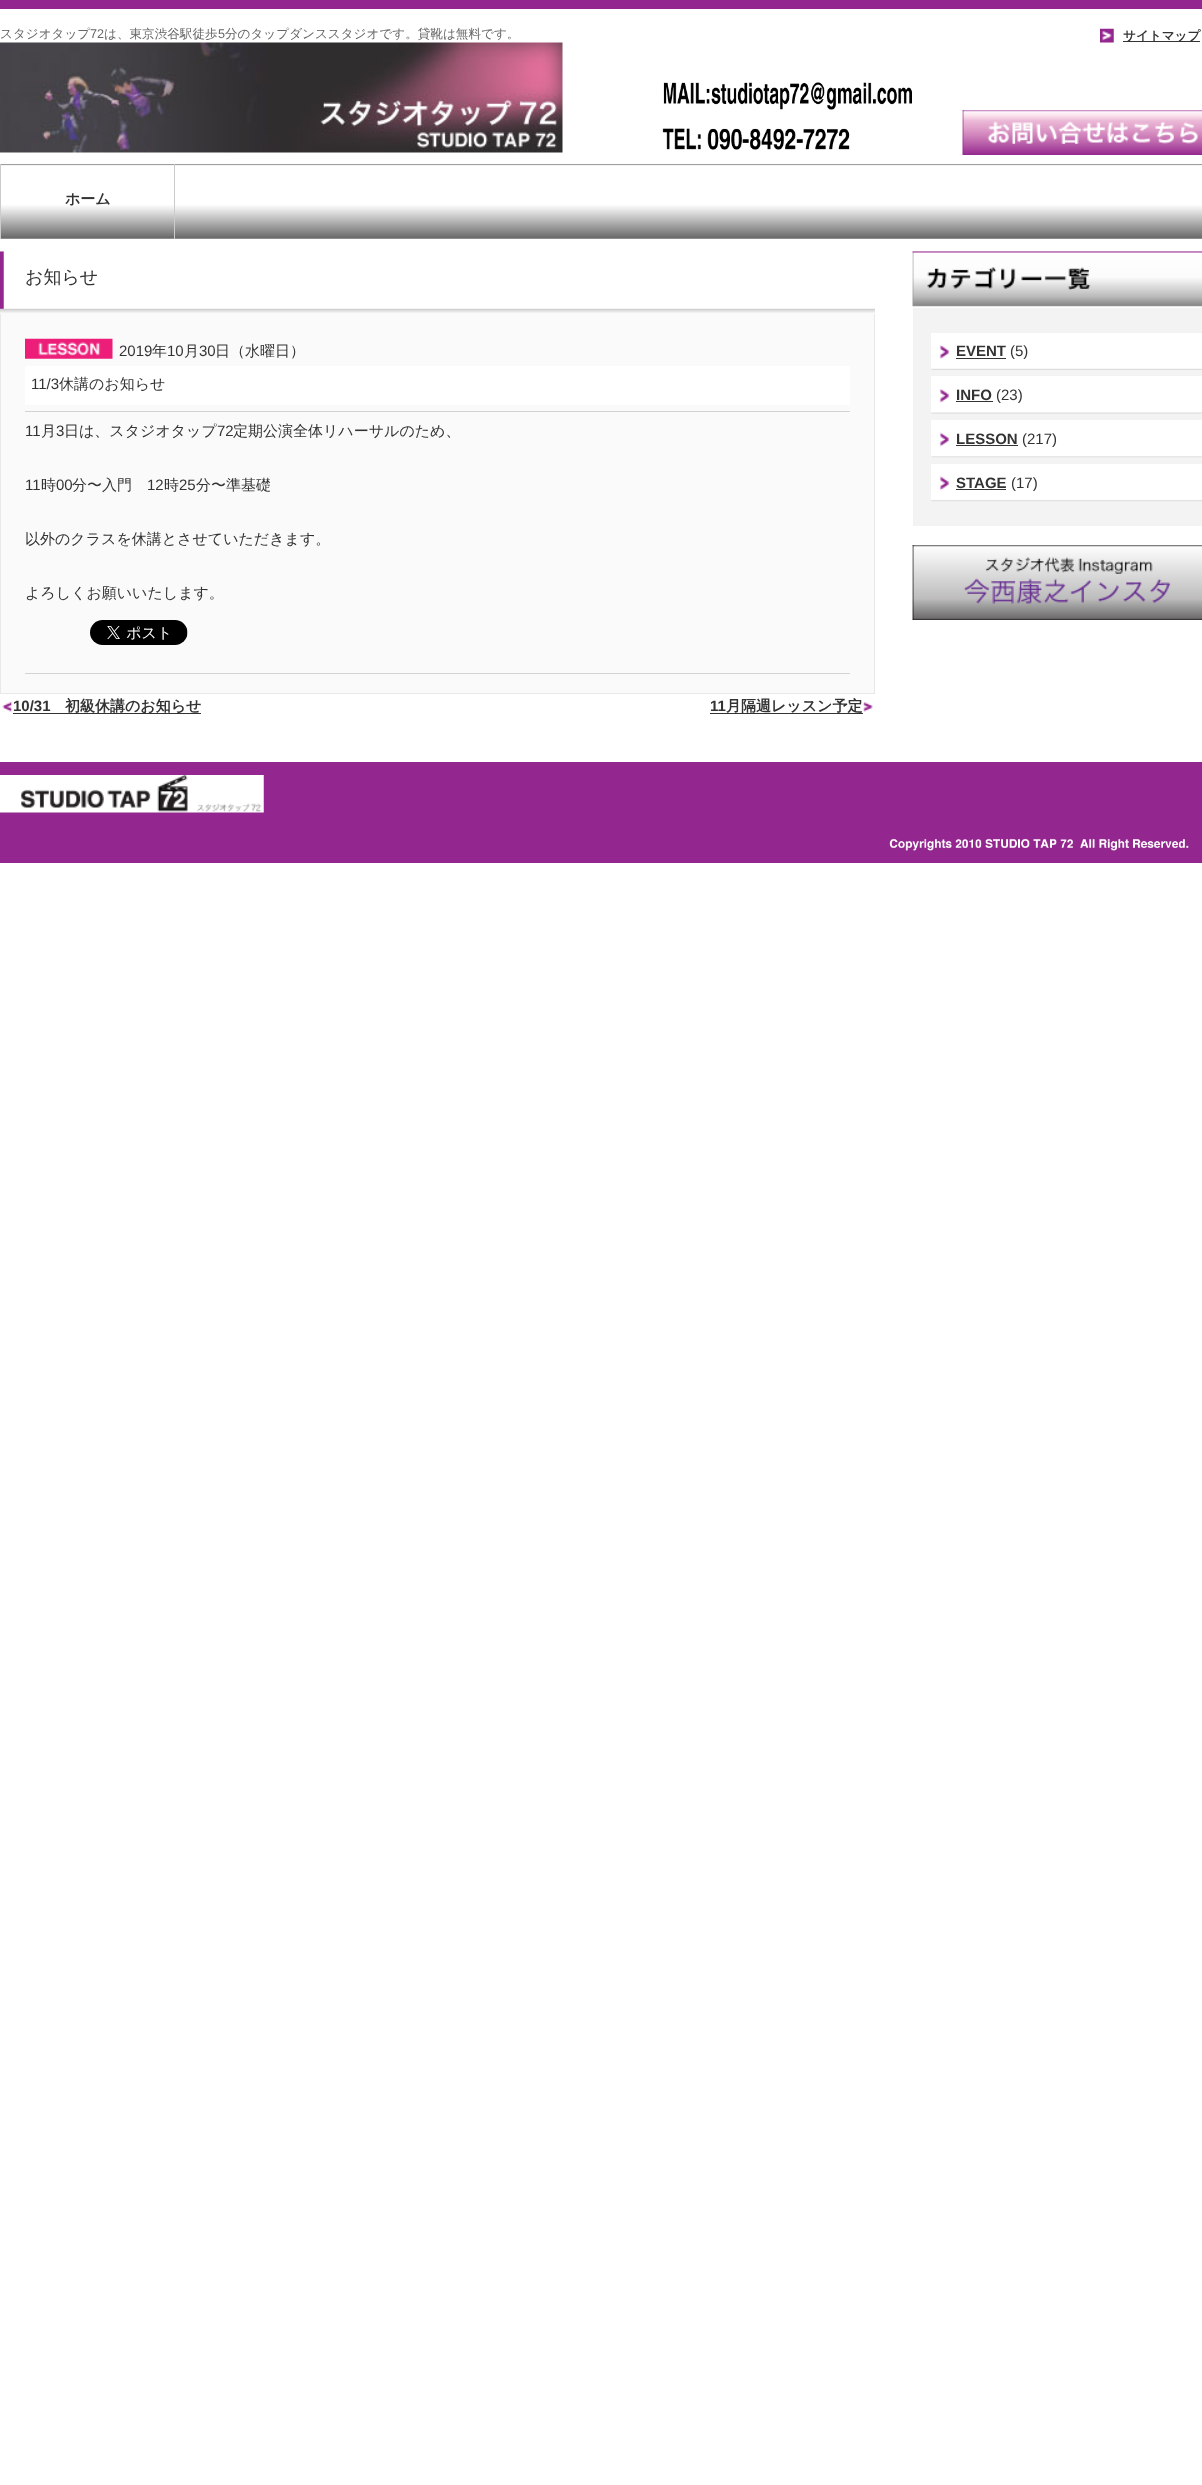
<!DOCTYPE html>
<meta charset="utf-8">
<style>body { margin: 0 } canvas { display: block }</style>
<canvas id="canvas" width="1202" height="2485"></canvas>
<img id="img1" src="images/1.png" hidden>
<img id="img2" src="images/2.png" hidden>
<img id="img3" src="images/3.png" hidden>
<img id="img4" src="images/4.png" hidden>
<img id="img5" src="images/5.png" hidden>
<img id="img6" src="images/6.png" hidden>
<img id="img7" src="images/7.png" hidden>
<img id="img8" src="images/8.png" hidden>
<img id="img9" src="images/9.png" hidden>
<img id="img10" src="images/10.png" hidden>
<img id="img11" src="images/11.png" hidden>
<img id="img12" src="images/12.png" hidden>
<img id="img13" src="images/13.png" hidden>
<img id="img14" src="images/14.png" hidden>
<img id="img15" src="images/15.png" hidden>
<img id="img16" src="images/16.png" hidden>
<img id="img17" src="images/17.png" hidden>
<img id="img18" src="images/18.png" hidden>
<img id="img19" src="images/19.png" hidden>
<script>
window.onload = function () {
    const canvas = document.getElementById('canvas');
    const context = canvas.getContext('2d');
    context.miterLimit = 4;
    context.fontKerning = 'normal';

    context.fillStyle = 'rgb(255, 255, 255)';
    context.fillRect(0, 0, 1202, 2485);
    context.fillStyle = 'rgb(147, 39, 143)';
    context.fillRect(0, 0, 1202, 9);
    context.drawImage(document.getElementById('img1'), 1100, 28, 14, 15);
    context.fillStyle = 'rgb(51, 51, 51)';
    context.fillRect(1123, 41, 77, 1);
    context.drawImage(document.getElementById('img2'), 0, 42, 563, 111);
    context.drawImage(document.getElementById('img3'), 663, 82, 249, 28);
    context.drawImage(document.getElementById('img4'), 662, 128, 188, 22);
    context.drawImage(document.getElementById('img5'), 962, 110, 240, 45);
    context.drawImage(document.getElementById('img6'), 1, 164, 1201, 75);
    context.fillStyle = 'rgb(204, 204, 204)';
    context.fillRect(174, 164, 1, 75);
    context.fillRect(0, 164, 1, 75);
    context.drawImage(document.getElementById('img7'), 0, 251, 875, 63);
    context.fillStyle = 'rgb(250, 250, 250)';
    context.fillRect(1, 314, 873, 379);
    context.fillStyle = 'rgb(232, 232, 232)';
    context.fillRect(874, 314, 1, 380);
    context.fillRect(0, 693, 875, 1);
    context.fillRect(0, 314, 1, 380);
    context.drawImage(document.getElementById('img8'), 25, 338, 88, 21);
    context.fillStyle = 'rgb(255, 255, 255)';
    context.fillRect(25, 366, 825, 39);
    context.fillStyle = 'rgb(211, 211, 211)';
    context.fillRect(25, 411, 825, 1);
    context.fillRect(25, 673, 825, 1);
    context.drawImage(document.getElementById('img9'), 90, 620, 98, 25);
    context.drawImage(document.getElementById('img10'), 2, 702, 10, 10);
    context.fillStyle = 'rgb(51, 51, 51)';
    context.fillRect(13, 713, 188, 1);
    context.drawImage(document.getElementById('img11'), 863, 702, 10, 10);
    context.fillRect(710, 713, 153, 1);
    context.drawImage(document.getElementById('img12'), 912, 251, 290, 56);
    context.fillStyle = 'rgb(243, 243, 243)';
    context.fillRect(913, 308, 289, 218);
    context.fillStyle = 'rgb(255, 255, 255)';
    context.fillRect(931, 333, 271, 37);
    context.drawImage(document.getElementById('img13'), 931, 345, 271, 25);
    context.fillStyle = 'rgb(51, 51, 51)';
    context.fillRect(956, 358, 50, 1);
    context.fillStyle = 'rgb(255, 255, 255)';
    context.fillRect(931, 376, 271, 38);
    context.drawImage(document.getElementById('img14'), 931, 388, 271, 26);
    context.fillStyle = 'rgb(51, 51, 51)';
    context.fillRect(956, 401, 37, 1);
    context.fillStyle = 'rgb(255, 255, 255)';
    context.fillRect(931, 420, 271, 38);
    context.drawImage(document.getElementById('img15'), 931, 432, 271, 26);
    context.fillStyle = 'rgb(51, 51, 51)';
    context.fillRect(956, 445, 62, 1);
    context.fillStyle = 'rgb(255, 255, 255)';
    context.fillRect(931, 464, 271, 37);
    context.drawImage(document.getElementById('img16'), 931, 476, 271, 26);
    context.fillStyle = 'rgb(51, 51, 51)';
    context.fillRect(956, 489, 50, 1);
    context.drawImage(document.getElementById('img17'), 912, 545, 290, 75);
    context.fillStyle = 'rgb(147, 39, 143)';
    context.fillRect(0, 762, 1202, 101);
    context.drawImage(document.getElementById('img18'), 0, 775, 264, 38);
    context.drawImage(document.getElementById('img19'), 889, 838, 300, 13);
    context.font = '500 12.6px WenQuanYi Zen Hei';
    context.fillStyle = 'rgb(102, 102, 102)';
    context.fillText('スタジオタップ', 0, 38);
    context.font = '12.6px Liberation Sans';
    context.fillText('72', 90, 38);
    context.font = '500 12.6px WenQuanYi Zen Hei';
    context.fillText('は、東京渋谷駅徒歩', 104, 38);
    context.font = '12.6px Liberation Sans';
    context.fillText('5', 218, 38);
    context.font = '500 12.6px WenQuanYi Zen Hei';
    context.fillText('分のタップダンススタジオです。貸靴は無料です。', 225, 38);
    context.font = 'bold 12.6px WenQuanYi Zen Hei';
    context.fillStyle = 'rgb(51, 51, 51)';
    context.fillText('サイトマップ', 1123, 40);
    context.font = 'bold 15px WenQuanYi Zen Hei';
    context.fillText('ホーム', 65, 204);
    context.font = '500 18px WenQuanYi Zen Hei';
    context.fillText('お知らせ', 25, 283);
    context.font = '15px Liberation Sans';
    context.fillText('2019', 119, 356);
    context.font = '500 15px WenQuanYi Zen Hei';
    context.fillText('年', 152, 356);
    context.font = '15px Liberation Sans';
    context.fillText('10', 167, 356);
    context.font = '500 15px WenQuanYi Zen Hei';
    context.fillText('月', 184, 356);
    context.font = '15px Liberation Sans';
    context.fillText('30', 199, 356);
    context.font = '500 15px WenQuanYi Zen Hei';
    context.fillText('日（水曜日）', 215, 356);
    context.font = '15px Liberation Sans';
    context.fillText('11/3', 31, 389);
    context.font = '500 15px WenQuanYi Zen Hei';
    context.fillText('休講のお知らせ', 59, 389);
    context.font = '15px Liberation Sans';
    context.fillText('11', 25, 436);
    context.font = '500 15px WenQuanYi Zen Hei';
    context.fillText('月', 41, 436);
    context.font = '15px Liberation Sans';
    context.fillText('3', 56, 436);
    context.font = '500 15px WenQuanYi Zen Hei';
    context.fillText('日は、スタジオタップ', 64, 436);
    context.font = '15px Liberation Sans';
    context.fillText('72', 217, 436);
    context.font = '500 15px WenQuanYi Zen Hei';
    context.fillText('定期公演全体リハーサルのため、', 233, 436);
    context.font = '15px Liberation Sans';
    context.fillText('11', 25, 490);
    context.font = '500 15px WenQuanYi Zen Hei';
    context.fillText('時', 41, 490);
    context.font = '15px Liberation Sans';
    context.fillText('00', 56, 490);
    context.font = '500 15px WenQuanYi Zen Hei';
    context.fillText('分〜入門', 72, 490);
    context.font = '15px Liberation Sans';
    context.fillText('12', 147, 490);
    context.font = '500 15px WenQuanYi Zen Hei';
    context.fillText('時', 164, 490);
    context.font = '15px Liberation Sans';
    context.fillText('25', 179, 490);
    context.font = '500 15px WenQuanYi Zen Hei';
    context.fillText('分〜準基礎', 196, 490);
    context.fillText('以外のクラスを休講とさせていただきます。', 25, 544);
    context.fillText('よろしくお願いいたします。', 25, 598);
    context.font = 'bold 15px Liberation Sans';
    context.fillText('10/31', 13, 711);
    context.font = 'bold 15px WenQuanYi Zen Hei';
    context.fillText('初級休講のお知らせ', 65, 711);
    context.font = 'bold 15px Liberation Sans';
    context.fillText('11', 710, 711);
    context.font = 'bold 15px WenQuanYi Zen Hei';
    context.fillText('月隔週レッスン予定', 726, 711);
    context.font = 'bold 15px Liberation Sans';
    context.fillText('EVENT', 956, 356);
    context.font = '15px Liberation Sans';
    context.fillText('(5)', 1010, 356);
    context.font = 'bold 15px Liberation Sans';
    context.fillText('INFO', 956, 400);
    context.font = '15px Liberation Sans';
    context.fillText('(23)', 996, 400);
    context.font = 'bold 15px Liberation Sans';
    context.fillText('LESSON', 956, 444);
    context.font = '15px Liberation Sans';
    context.fillText('(217)', 1022, 444);
    context.font = 'bold 15px Liberation Sans';
    context.fillText('STAGE', 956, 488);
    context.font = '15px Liberation Sans';
    context.fillText('(17)', 1011, 488);
};
</script>
